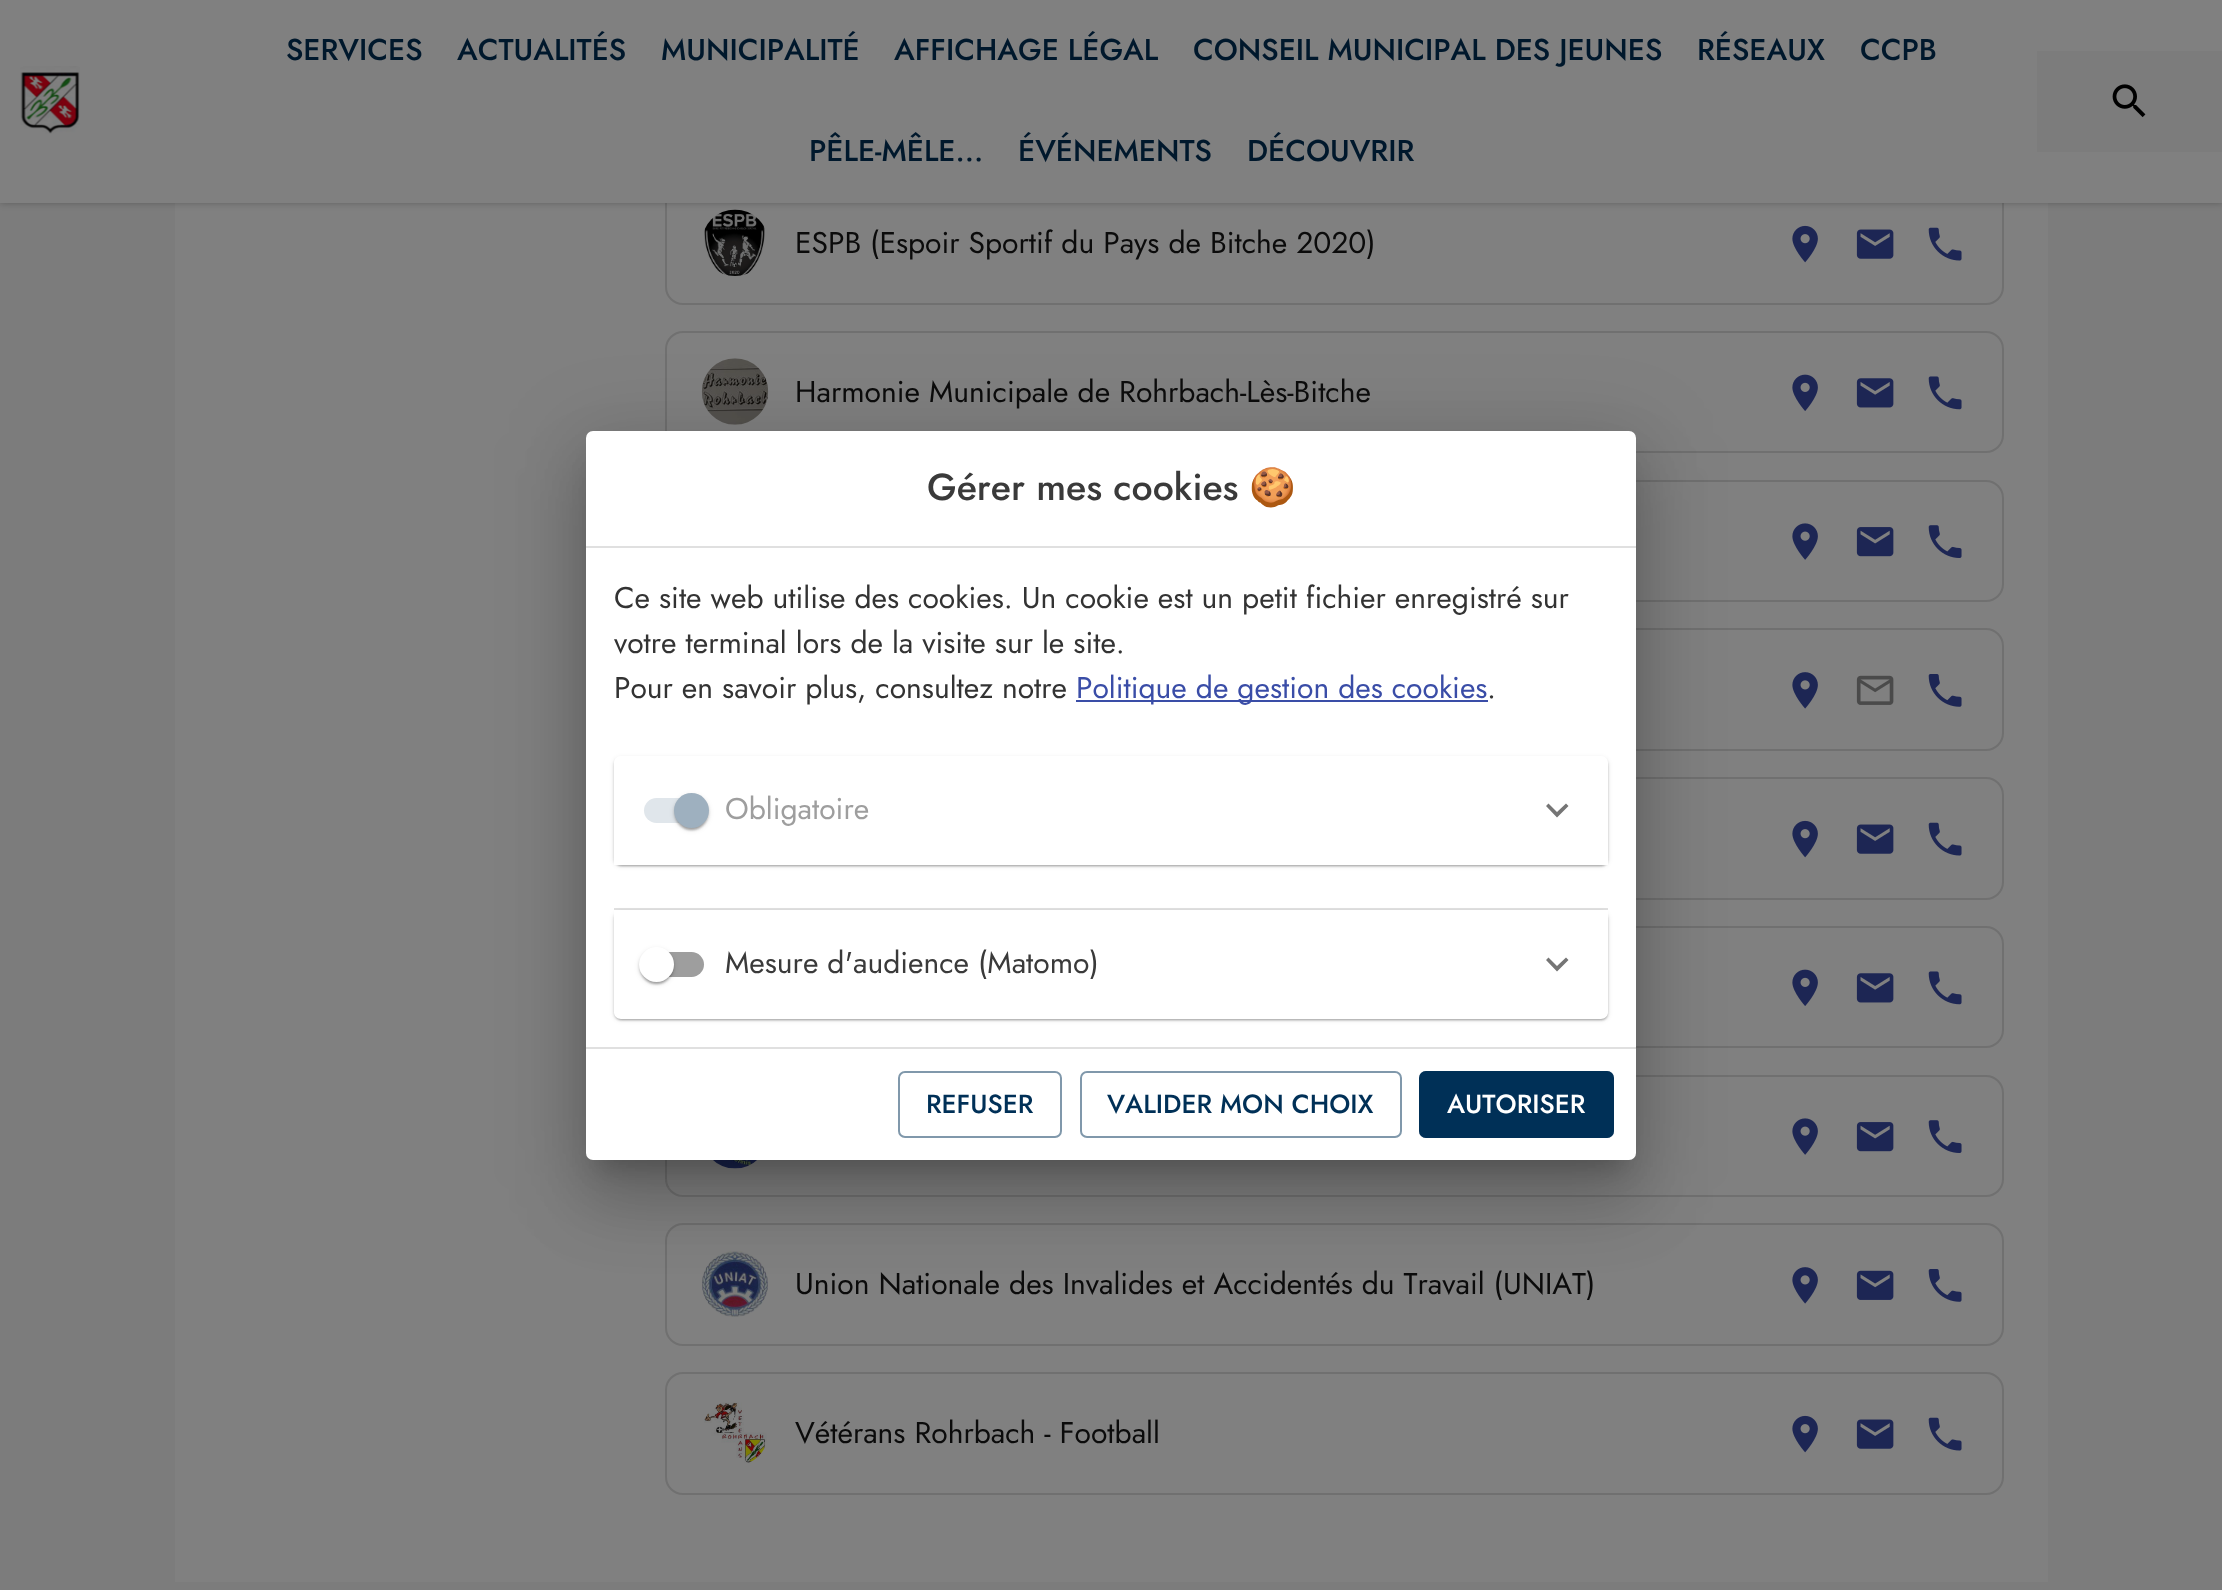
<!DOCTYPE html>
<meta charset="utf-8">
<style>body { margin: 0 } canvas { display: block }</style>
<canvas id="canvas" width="2222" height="1590"></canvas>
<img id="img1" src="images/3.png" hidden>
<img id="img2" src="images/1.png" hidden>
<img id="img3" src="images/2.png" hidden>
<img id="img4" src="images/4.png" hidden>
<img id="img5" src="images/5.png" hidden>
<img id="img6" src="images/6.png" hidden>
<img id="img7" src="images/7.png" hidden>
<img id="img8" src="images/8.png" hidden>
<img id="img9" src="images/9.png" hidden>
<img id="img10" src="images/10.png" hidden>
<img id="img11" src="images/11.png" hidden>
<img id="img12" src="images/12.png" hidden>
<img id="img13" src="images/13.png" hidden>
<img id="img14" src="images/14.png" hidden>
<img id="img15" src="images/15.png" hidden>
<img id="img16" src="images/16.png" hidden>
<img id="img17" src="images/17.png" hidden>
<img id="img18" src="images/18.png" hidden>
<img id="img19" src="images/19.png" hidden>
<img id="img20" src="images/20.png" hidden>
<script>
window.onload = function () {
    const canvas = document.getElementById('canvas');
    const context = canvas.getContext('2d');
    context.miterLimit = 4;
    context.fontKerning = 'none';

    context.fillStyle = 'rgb(124, 124, 124)';
    context.fillRect(0, 0, 2222, 1590);
    context.fillStyle = 'rgb(128, 128, 128)';
    context.fillRect(175, 203, 1873, 1379);
    context.beginPath();
    context.roundRect(666, 183, 1337, 121, 17);
    context.strokeStyle = 'rgb(112, 112, 112)';
    context.lineWidth = 2;
    context.stroke();
    context.drawImage(document.getElementById('img1'), 704, 209, 61, 67);
    context.fillStyle = 'rgba(0, 0, 0, 0.25)';
    context.filter = 'blur(3.5px)';
    context.beginPath();
    context.rect(0, 0, 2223, 203);
    context.fill();
    context.filter = 'none';
    context.fillStyle = 'rgb(128, 128, 128)';
    context.fillRect(0, 0, 2222, 203);
    context.drawImage(document.getElementById('img2'), 20, 66, 60, 68);
    context.fillStyle = 'rgb(124, 124, 124)';
    context.fillRect(2037, 51, 185, 101);
    context.drawImage(document.getElementById('img3'), 2112, 84, 34, 34);
    context.drawImage(document.getElementById('img4'), 1792, 225, 26, 38);
    context.drawImage(document.getElementById('img5'), 1856, 229, 38, 30);
    context.drawImage(document.getElementById('img6'), 1928, 227, 34, 34);
    context.beginPath();
    context.roundRect(666, 332, 1337, 120, 17);
    context.stroke();
    context.drawImage(document.getElementById('img7'), 701, 358, 68, 67);
    context.drawImage(document.getElementById('img8'), 1792, 374, 26, 37);
    context.drawImage(document.getElementById('img9'), 1856, 378, 38, 30);
    context.drawImage(document.getElementById('img10'), 1928, 376, 34, 34);
    context.beginPath();
    context.roundRect(666, 481, 1337, 120, 17);
    context.stroke();
    context.drawImage(document.getElementById('img11'), 1792, 523, 26, 37);
    context.drawImage(document.getElementById('img12'), 1856, 527, 38, 30);
    context.drawImage(document.getElementById('img13'), 1928, 525, 34, 33);
    context.beginPath();
    context.roundRect(666, 629, 1337, 121, 17);
    context.stroke();
    context.drawImage(document.getElementById('img14'), 1792, 672, 26, 37);
    context.drawImage(document.getElementById('img15'), 1856, 675, 38, 30);
    context.drawImage(document.getElementById('img16'), 1928, 674, 34, 33);
    context.beginPath();
    context.roundRect(666, 778, 1337, 121, 17);
    context.stroke();
    context.drawImage(document.getElementById('img4'), 1792, 820, 26, 38);
    context.drawImage(document.getElementById('img5'), 1856, 824, 38, 30);
    context.drawImage(document.getElementById('img6'), 1928, 822, 34, 34);
    context.beginPath();
    context.roundRect(666, 927, 1337, 120, 17);
    context.stroke();
    context.drawImage(document.getElementById('img8'), 1792, 969, 26, 37);
    context.drawImage(document.getElementById('img9'), 1856, 973, 38, 30);
    context.drawImage(document.getElementById('img10'), 1928, 971, 34, 34);
    context.beginPath();
    context.roundRect(666, 1076, 1337, 120, 17);
    context.stroke();
    context.drawImage(document.getElementById('img11'), 1792, 1118, 26, 37);
    context.drawImage(document.getElementById('img12'), 1856, 1122, 38, 30);
    context.drawImage(document.getElementById('img13'), 1928, 1120, 34, 33);
    context.drawImage(document.getElementById('img17'), 713, 1160, 44, 9);
    context.beginPath();
    context.roundRect(666, 1224, 1337, 121, 17);
    context.stroke();
    context.drawImage(document.getElementById('img18'), 702, 1251, 66, 66);
    context.drawImage(document.getElementById('img14'), 1792, 1267, 26, 37);
    context.drawImage(document.getElementById('img19'), 1856, 1270, 38, 30);
    context.drawImage(document.getElementById('img16'), 1928, 1269, 34, 33);
    context.beginPath();
    context.roundRect(666, 1373, 1337, 121, 17);
    context.stroke();
    context.drawImage(document.getElementById('img20'), 704, 1402, 63, 61);
    context.drawImage(document.getElementById('img4'), 1792, 1415, 26, 38);
    context.drawImage(document.getElementById('img5'), 1856, 1419, 38, 30);
    context.drawImage(document.getElementById('img6'), 1928, 1417, 34, 34);
    context.fillStyle = 'rgba(0, 0, 0, 0.12)';
    context.filter = 'blur(40px)';
    context.beginPath();
    context.roundRect(572, 432, 1078, 758, 21);
    context.fill();
    context.filter = 'none';
    context.fillStyle = 'rgba(0, 0, 0, 0.14)';
    context.filter = 'blur(33px)';
    context.beginPath();
    context.roundRect(581, 467, 1061, 741, 12);
    context.fill();
    context.filter = 'none';
    context.fillStyle = 'rgba(0, 0, 0, 0.2)';
    context.filter = 'blur(13px)';
    context.beginPath();
    context.rect(599, 462, 1025, 705);
    context.fill();
    context.filter = 'none';
    context.fillStyle = 'rgb(255, 255, 255)';
    context.beginPath();
    context.roundRect(586, 431, 1050, 729, 7);
    context.fill();
    context.fillStyle = 'rgb(224, 224, 224)';
    context.fillRect(586, 546, 1050, 2);
    context.fillRect(586, 1047, 1050, 2);
    context.fillStyle = 'rgb(58, 77, 167)';
    context.fillRect(1076, 700, 412, 2);
    context.save();
    context.beginPath();
    context.moveTo(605, 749);
    context.lineTo(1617, 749);
    context.lineTo(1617, 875);
    context.lineTo(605, 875);
    context.closePath();
    context.moveTo(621, 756);
    context.lineTo(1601, 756);
    context.bezierCurveTo(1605, 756, 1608, 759, 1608, 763);
    context.lineTo(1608, 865);
    context.lineTo(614, 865);
    context.lineTo(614, 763);
    context.bezierCurveTo(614, 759, 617, 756, 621, 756);
    context.closePath();
    context.clip('evenodd');
    context.fillStyle = 'rgba(0, 0, 0, 0.12)';
    context.filter = 'blur(2.5px)';
    context.beginPath();
    context.roundRect(614, 758, 994, 108, 7);
    context.fill();
    context.filter = 'none';
    context.restore();
    context.save();
    context.beginPath();
    context.moveTo(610, 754);
    context.lineTo(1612, 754);
    context.lineTo(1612, 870);
    context.lineTo(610, 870);
    context.closePath();
    context.moveTo(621, 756);
    context.lineTo(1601, 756);
    context.bezierCurveTo(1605, 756, 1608, 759, 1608, 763);
    context.lineTo(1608, 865);
    context.lineTo(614, 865);
    context.lineTo(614, 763);
    context.bezierCurveTo(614, 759, 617, 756, 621, 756);
    context.closePath();
    context.clip('evenodd');
    context.fillStyle = 'rgba(0, 0, 0, 0.14)';
    context.filter = 'blur(1px)';
    context.beginPath();
    context.roundRect(614, 758, 994, 108, 7);
    context.fill();
    context.filter = 'none';
    context.restore();
    context.save();
    context.beginPath();
    context.moveTo(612, 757);
    context.lineTo(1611, 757);
    context.lineTo(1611, 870);
    context.lineTo(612, 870);
    context.closePath();
    context.moveTo(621, 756);
    context.lineTo(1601, 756);
    context.bezierCurveTo(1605, 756, 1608, 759, 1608, 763);
    context.lineTo(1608, 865);
    context.lineTo(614, 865);
    context.lineTo(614, 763);
    context.bezierCurveTo(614, 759, 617, 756, 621, 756);
    context.closePath();
    context.clip('evenodd');
    context.fillStyle = 'rgba(0, 0, 0, 0.2)';
    context.filter = 'blur(1px)';
    context.beginPath();
    context.roundRect(616, 761, 991, 105, 5);
    context.fill();
    context.filter = 'none';
    context.restore();
    context.fillStyle = 'rgb(224, 230, 235)';
    context.beginPath();
    context.roundRect(644, 798, 60, 25, 12.5);
    context.fill();
    context.fillStyle = 'rgba(0, 0, 0, 0.12)';
    context.filter = 'blur(2.5px)';
    context.beginPath();
    context.roundRect(674, 795, 35, 35, 17.5);
    context.fill();
    context.filter = 'none';
    context.fillStyle = 'rgba(0, 0, 0, 0.14)';
    context.filter = 'blur(1px)';
    context.beginPath();
    context.roundRect(674, 795, 35, 35, 17.5);
    context.fill();
    context.filter = 'none';
    context.fillStyle = 'rgba(0, 0, 0, 0.2)';
    context.filter = 'blur(1px)';
    context.beginPath();
    context.roundRect(676, 798, 31, 32, 15.5);
    context.fill();
    context.filter = 'none';
    context.fillStyle = 'rgb(158, 176, 191)';
    context.beginPath();
    context.arc(691.5, 810.5, 17.5, 0, 2 * Math.PI);
    context.fill();
    context.fillStyle = 'rgb(117, 117, 117)';
    context.beginPath();
    context.moveTo(1566, 803.5);
    context.lineTo(1557, 812);
    context.lineTo(1548.5, 803.5);
    context.lineTo(1546, 806);
    context.lineTo(1557, 817.5);
    context.lineTo(1568.5, 806);
    context.closePath();
    context.fill();
    context.save();
    context.beginPath();
    context.moveTo(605, 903);
    context.lineTo(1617, 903);
    context.lineTo(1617, 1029);
    context.lineTo(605, 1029);
    context.closePath();
    context.moveTo(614, 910);
    context.lineTo(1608, 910);
    context.lineTo(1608, 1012);
    context.bezierCurveTo(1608, 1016, 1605, 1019, 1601, 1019);
    context.lineTo(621, 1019);
    context.bezierCurveTo(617, 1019, 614, 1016, 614, 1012);
    context.closePath();
    context.clip('evenodd');
    context.fillStyle = 'rgba(0, 0, 0, 0.12)';
    context.filter = 'blur(2.5px)';
    context.beginPath();
    context.roundRect(614, 912, 994, 108, 7);
    context.fill();
    context.filter = 'none';
    context.restore();
    context.save();
    context.beginPath();
    context.moveTo(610, 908);
    context.lineTo(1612, 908);
    context.lineTo(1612, 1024);
    context.lineTo(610, 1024);
    context.closePath();
    context.moveTo(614, 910);
    context.lineTo(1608, 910);
    context.lineTo(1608, 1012);
    context.bezierCurveTo(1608, 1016, 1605, 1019, 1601, 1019);
    context.lineTo(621, 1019);
    context.bezierCurveTo(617, 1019, 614, 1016, 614, 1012);
    context.closePath();
    context.clip('evenodd');
    context.fillStyle = 'rgba(0, 0, 0, 0.14)';
    context.filter = 'blur(1px)';
    context.beginPath();
    context.roundRect(614, 912, 994, 108, 7);
    context.fill();
    context.filter = 'none';
    context.restore();
    context.save();
    context.beginPath();
    context.moveTo(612, 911);
    context.lineTo(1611, 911);
    context.lineTo(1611, 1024);
    context.lineTo(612, 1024);
    context.closePath();
    context.moveTo(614, 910);
    context.lineTo(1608, 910);
    context.lineTo(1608, 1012);
    context.bezierCurveTo(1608, 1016, 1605, 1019, 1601, 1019);
    context.lineTo(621, 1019);
    context.bezierCurveTo(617, 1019, 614, 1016, 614, 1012);
    context.closePath();
    context.clip('evenodd');
    context.fillStyle = 'rgba(0, 0, 0, 0.2)';
    context.filter = 'blur(1px)';
    context.beginPath();
    context.roundRect(616, 915, 991, 105, 5);
    context.fill();
    context.filter = 'none';
    context.restore();
    context.fillStyle = 'rgba(0, 0, 0, 0.12)';
    context.fillRect(614, 908, 994, 2);
    context.fillStyle = 'rgb(158, 158, 158)';
    context.beginPath();
    context.roundRect(644, 952, 60, 25, 12.5);
    context.fill();
    context.fillStyle = 'rgba(0, 0, 0, 0.12)';
    context.filter = 'blur(2.5px)';
    context.beginPath();
    context.roundRect(639, 949, 35, 35, 17.5);
    context.fill();
    context.filter = 'none';
    context.fillStyle = 'rgba(0, 0, 0, 0.14)';
    context.filter = 'blur(1px)';
    context.beginPath();
    context.roundRect(639, 949, 35, 35, 17.5);
    context.fill();
    context.filter = 'none';
    context.fillStyle = 'rgba(0, 0, 0, 0.2)';
    context.filter = 'blur(1px)';
    context.beginPath();
    context.roundRect(641, 952, 31, 32, 15.5);
    context.fill();
    context.filter = 'none';
    context.fillStyle = 'rgb(255, 255, 255)';
    context.beginPath();
    context.arc(656.5, 964.5, 17.5, 0, 2 * Math.PI);
    context.fill();
    context.fillStyle = 'rgb(117, 117, 117)';
    context.beginPath();
    context.moveTo(1566, 957.5);
    context.lineTo(1557, 966);
    context.lineTo(1548.5, 957.5);
    context.lineTo(1546, 960);
    context.lineTo(1557, 971.5);
    context.lineTo(1568.5, 960);
    context.closePath();
    context.fill();
    context.beginPath();
    context.roundRect(899, 1072, 162, 65, 6);
    context.strokeStyle = 'rgb(128, 152, 171)';
    context.stroke();
    context.beginPath();
    context.roundRect(1081, 1072, 320, 65, 6);
    context.stroke();
    context.fillStyle = 'rgb(0, 48, 87)';
    context.beginPath();
    context.roundRect(1419, 1071, 195, 67, 7);
    context.fill();
    context.beginPath();
    context.roundRect(1420, 1072, 193, 65, 6);
    context.strokeStyle = 'rgba(0, 48, 87, 0.5)';
    context.stroke();
    context.font = '500 30px Jost';
    context.fillStyle = 'rgb(0, 24, 44)';
    context.fillText('SERVICES', 286, 60);
    context.fillText('ACTUALITÉS', 457, 60);
    context.fillText('MUNICIPALITÉ', 661, 60);
    context.fillText('AFFICHAGE LÉGAL', 894, 60);
    context.fillText('CONSEIL MUNICIPAL DES JEUNES', 1193, 60);
    context.fillText('RÉSEAUX', 1697, 60);
    context.fillText('CCPB', 1860, 60);
    context.fillText('PÊLE-MÊLE...', 809, 161);
    context.fillText('ÉVÉNEMENTS', 1018, 161);
    context.fillText('DÉCOUVRIR', 1247, 161);
    context.font = '30px Jost';
    context.fillStyle = 'rgb(11, 11, 11)';
    context.fillText('ESPB (Espoir Sportif du Pays de Bitche 2020)', 795, 253);
    context.fillText('Harmonie Municipale de Rohrbach-Lès-Bitche', 795, 402);
    context.fillText('Union Nationale des Invalides et Accidentés du Travail (UNIAT)', 795, 1294);
    context.fillText('Vétérans Rohrbach - Football', 795, 1443);
    context.font = '500 37.5px Jost';
    context.fillStyle = 'rgb(58, 58, 58)';
    context.fillText('Gérer mes cookies', 927, 500);
    context.font = '37.5px Noto Color Emoji';
    context.fillText('🍪', 1249, 500);
    context.font = '30px Jost';
    context.fillStyle = 'rgb(51, 51, 51)';
    context.fillText('Ce site web utilise des cookies. Un cookie est un petit fichier enregistré sur', 614, 608);
    context.fillText('votre terminal lors de la visite sur le site.', 614, 653);
    context.fillText('Pour en savoir plus, consultez notre', 614, 698);
    context.fillStyle = 'rgb(58, 77, 167)';
    context.fillText('Politique de gestion des cookies', 1076, 698);
    context.fillStyle = 'rgb(51, 51, 51)';
    context.fillText('.', 1487, 698);
    context.fillStyle = 'rgb(158, 158, 158)';
    context.fillText('Obligatoire', 725, 819);
    context.fillStyle = 'rgb(58, 58, 58)';
    context.fillText('Mesure d\'audience (Matomo)', 725, 973);
    context.font = '500 26.25px Jost';
    context.fillStyle = 'rgb(0, 48, 87)';
    context.fillText('REFUSER', 926, 1113);
    context.fillText('VALIDER MON CHOIX', 1107, 1113);
    context.fillStyle = 'rgb(255, 255, 255)';
    context.fillText('AUTORISER', 1447, 1113);
};
</script>
